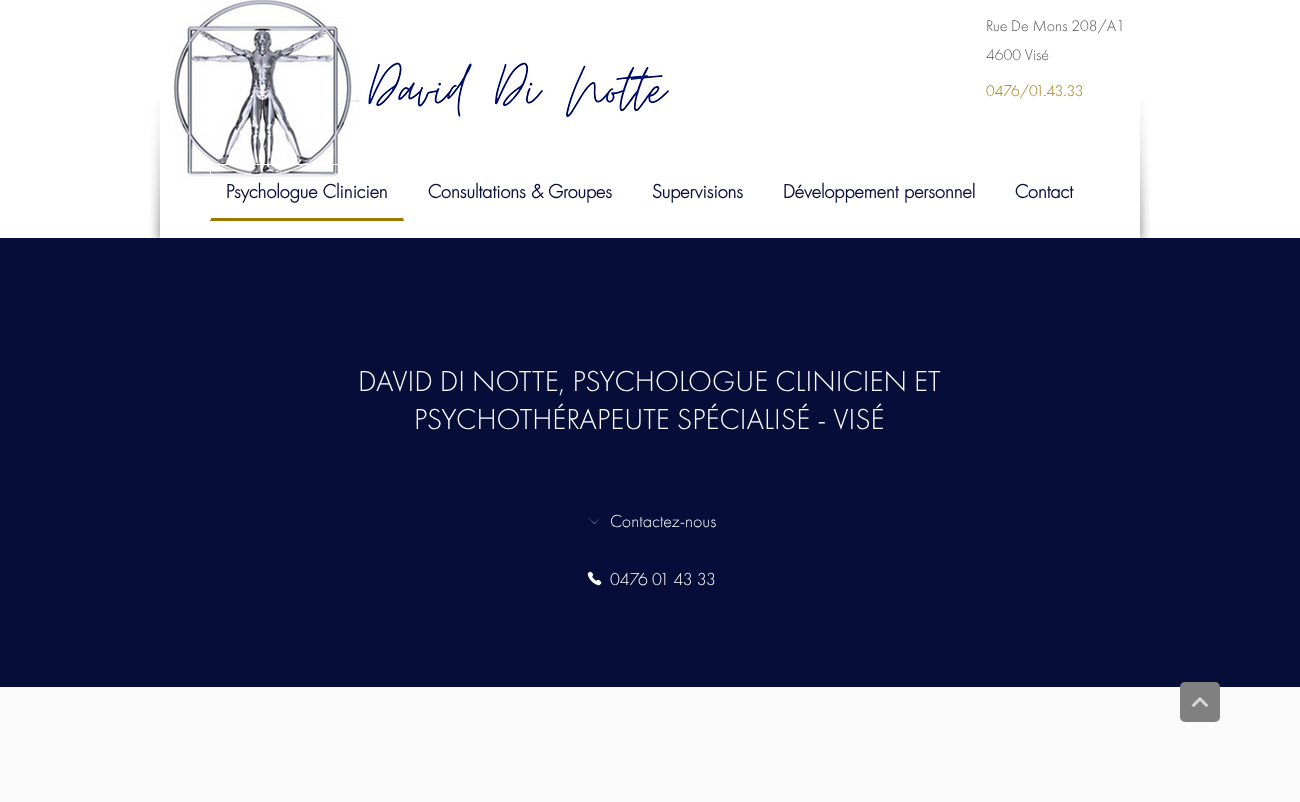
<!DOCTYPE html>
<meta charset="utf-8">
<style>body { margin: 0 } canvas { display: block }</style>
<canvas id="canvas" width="1300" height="802"></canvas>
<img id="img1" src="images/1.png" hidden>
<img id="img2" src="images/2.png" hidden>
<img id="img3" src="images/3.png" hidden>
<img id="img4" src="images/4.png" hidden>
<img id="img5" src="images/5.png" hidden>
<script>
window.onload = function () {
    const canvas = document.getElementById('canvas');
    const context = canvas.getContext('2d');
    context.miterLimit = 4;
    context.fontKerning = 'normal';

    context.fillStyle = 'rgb(255, 255, 255)';
    context.fillRect(0, 0, 1300, 802);
    context.drawImage(document.getElementById('img1'), 173, 0, 496, 180);
    context.fillRect(210, 164, 133, 1);
    context.fillStyle = 'rgb(158, 119, 1)';
    context.beginPath();
    context.moveTo(404, 221);
    context.lineTo(210, 221);
    context.lineTo(211, 218);
    context.lineTo(403, 218);
    context.closePath();
    context.fill();
    context.fillStyle = 'rgb(255, 255, 255)';
    context.beginPath();
    context.moveTo(210, 221);
    context.lineTo(210, 164);
    context.lineTo(211, 165);
    context.lineTo(211, 218);
    context.closePath();
    context.fill();
    context.drawImage(document.getElementById('img2'), 150, 100, 10, 138);
    context.drawImage(document.getElementById('img3'), 1140, 100, 10, 138);
    context.fillStyle = 'rgb(6, 13, 57)';
    context.fillRect(0, 238, 1300, 449);
    context.fillStyle = 'rgb(255, 255, 255)';
    context.beginPath();
    context.moveTo(601, 517);
    context.lineTo(594.5, 523.5);
    context.lineTo(587.5, 517);
    context.lineTo(594.5, 524);
    context.closePath();
    context.fill();
    context.drawImage(document.getElementById('img4'), 587, 571, 15, 15);
    context.fillStyle = 'rgb(250, 250, 250)';
    context.fillRect(0, 687, 1300, 115);
    context.fillStyle = 'rgb(128, 128, 128)';
    context.beginPath();
    context.roundRect(1180, 682, 40, 40, 5);
    context.fill();
    context.drawImage(document.getElementById('img5'), 1191, 697, 18, 10);
    context.font = '300 16px Futura PT';
    context.fillStyle = 'rgb(85, 85, 85)';
    context.fillText('Rue De Mons 208/A1', 986, 31);
    context.fillText('4600 Visé', 986, 60);
    context.fillStyle = 'rgb(157, 118, 1)';
    context.fillText('0476/01.43.33', 986, 96);
    context.font = 'bold 18px futura';
    context.fillStyle = 'rgb(6, 13, 57)';
    context.fillText('Psychologue Clinicien', 226, 198);
    context.fillText('Consultations & Groupes', 428, 198);
    context.fillText('Supervisions', 652, 198);
    context.fillText('Développement personnel', 783, 198);
    context.fillText('Contact', 1015, 198);
    context.font = '300 30px Futura PT';
    context.fillStyle = 'rgb(255, 255, 255)';
    context.fillText('DAVID DI NOTTE, PSYCHOLOGUE CLINICIEN ET', 358, 391);
    context.fillText('PSYCHOTHÉRAPEUTE SPÉCIALISÉ - VISÉ', 414, 429);
    context.font = '300 18px Futura PT';
    context.fillText('Contactez-nous', 610, 527);
    context.fillText('0476 01 43 33', 610, 585);
};
</script>
